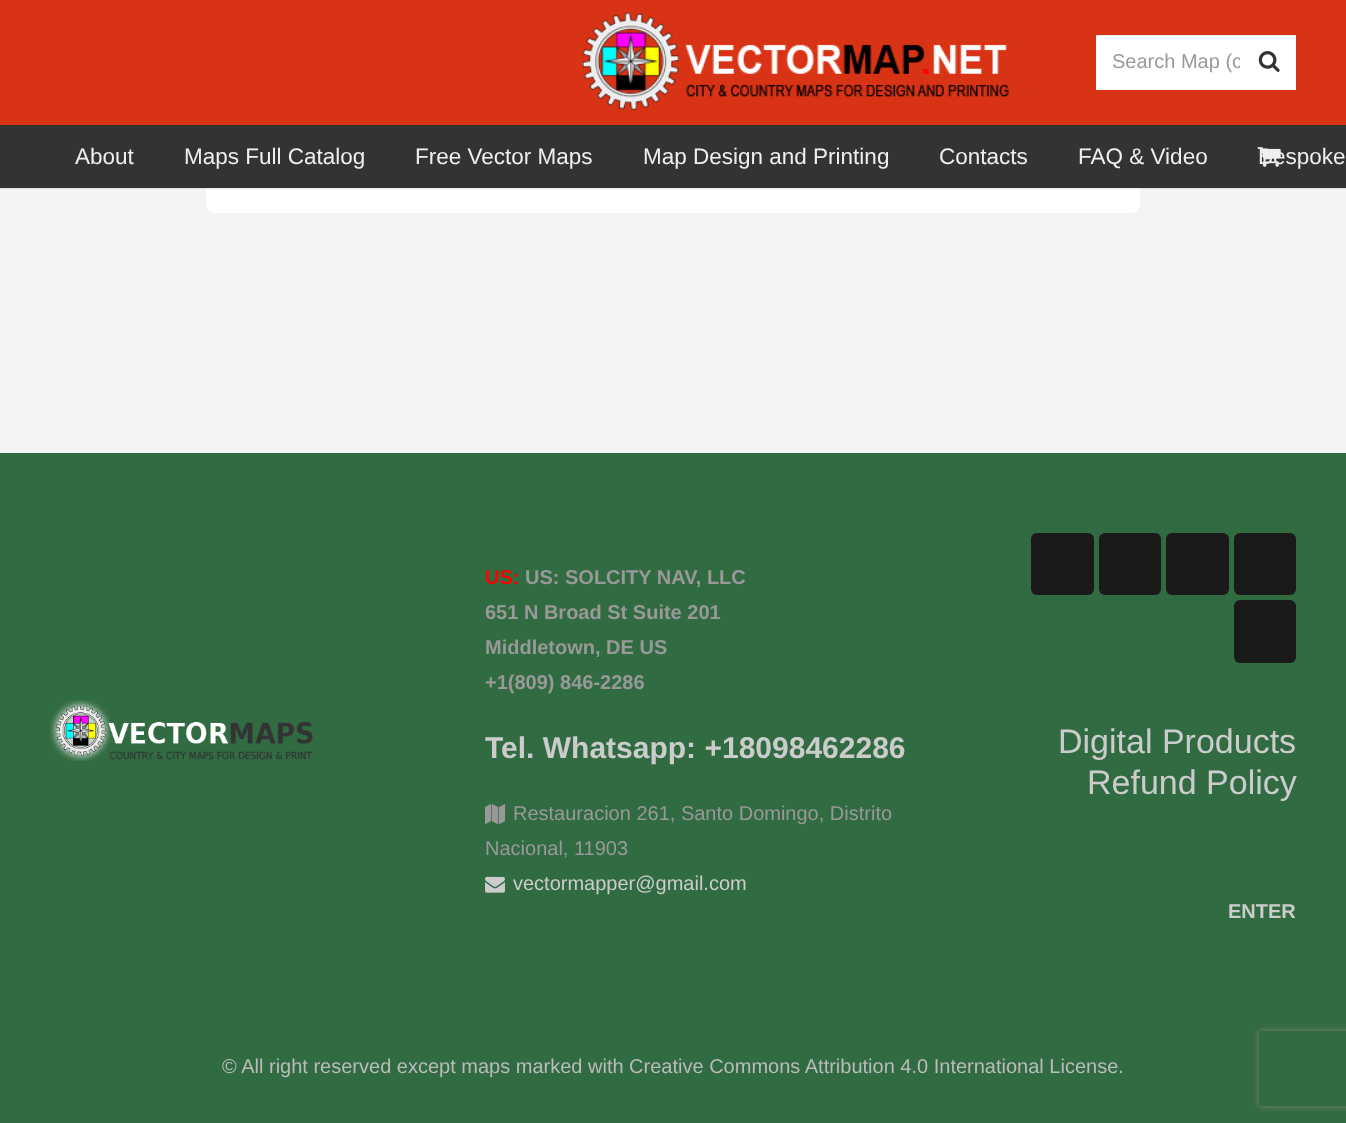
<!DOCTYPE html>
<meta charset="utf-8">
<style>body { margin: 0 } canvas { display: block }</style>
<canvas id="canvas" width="1346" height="1123"></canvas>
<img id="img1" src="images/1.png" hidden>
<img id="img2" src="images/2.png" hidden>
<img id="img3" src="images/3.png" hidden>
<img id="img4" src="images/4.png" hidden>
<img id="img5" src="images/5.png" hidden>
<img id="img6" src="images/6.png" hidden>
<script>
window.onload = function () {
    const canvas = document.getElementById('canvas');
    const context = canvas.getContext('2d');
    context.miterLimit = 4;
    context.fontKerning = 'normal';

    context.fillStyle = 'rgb(242, 244, 245)';
    context.fillRect(0, 0, 1346, 1123);
    context.fillStyle = 'rgb(223, 224, 225)';
    context.fillRect(0, 188, 1346, 1);
    context.fillStyle = 'rgb(255, 255, 255)';
    context.beginPath();
    context.roundRect(206, -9, 934, 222, 9);
    context.fill();
    context.fillStyle = 'rgb(235, 235, 235)';
    context.fillRect(206, 188, 934, 1);
    context.fillStyle = 'rgb(217, 51, 21)';
    context.fillRect(0, 0, 1346, 125);
    context.drawImage(document.getElementById('img1'), 582, 12, 427, 99);
    context.fillStyle = 'rgb(255, 255, 255)';
    context.fillRect(1096, 36, 200, 54);
    context.fillStyle = 'rgb(235, 235, 235)';
    context.fillRect(1096, 35, 200, 1);
    context.drawImage(document.getElementById('img2'), 1258, 51, 22, 21);
    context.fillStyle = 'rgb(51, 51, 51)';
    context.fillRect(0, 125, 1346, 63);
    context.drawImage(document.getElementById('img3'), 1257, 147, 24, 20);
    context.fillStyle = 'rgb(49, 107, 65)';
    context.fillRect(0, 453, 1346, 670);
    context.drawImage(document.getElementById('img4'), 50, 700, 263, 61);
    context.drawImage(document.getElementById('img5'), 485, 804, 20, 20);
    context.drawImage(document.getElementById('img6'), 485, 876, 20, 17);
    context.fillStyle = 'rgb(26, 26, 26)';
    context.beginPath();
    context.roundRect(1031, 533, 63, 62, 6);
    context.fill();
    context.beginPath();
    context.roundRect(1099, 533, 62, 62, 6);
    context.fill();
    context.beginPath();
    context.roundRect(1166, 533, 63, 62, 6);
    context.fill();
    context.beginPath();
    context.roundRect(1234, 533, 62, 62, 6);
    context.fill();
    context.beginPath();
    context.roundRect(1234, 600, 62, 63, 6);
    context.fill();
    context.save();
    context.beginPath();
    context.moveTo(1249, 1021);
    context.lineTo(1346, 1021);
    context.lineTo(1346, 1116);
    context.lineTo(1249, 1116);
    context.closePath();
    context.moveTo(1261.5, 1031);
    context.lineTo(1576.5, 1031);
    context.bezierCurveTo(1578, 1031, 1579, 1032, 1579, 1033.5);
    context.lineTo(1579, 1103.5);
    context.bezierCurveTo(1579, 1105, 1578, 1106, 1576.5, 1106);
    context.lineTo(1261.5, 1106);
    context.bezierCurveTo(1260, 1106, 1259, 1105, 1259, 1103.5);
    context.lineTo(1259, 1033.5);
    context.bezierCurveTo(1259, 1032, 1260, 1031, 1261.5, 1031);
    context.closePath();
    context.clip('evenodd');
    context.fillStyle = 'rgb(128, 128, 128)';
    context.filter = 'blur(3px)';
    context.beginPath();
    context.roundRect(1259, 1031, 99, 75, 2.5);
    context.fill();
    context.filter = 'none';
    context.restore();
    context.save();
    context.beginPath();
    context.rect(1113, 51, 127, 23);
    context.clip();
    context.font = '20px Liberation Sans';
    context.fillStyle = 'rgb(153, 153, 153)';
    context.fillText('Search Map (c', 1112, 68);
    context.restore();
    context.font = '22.5px Liberation Sans';
    context.fillStyle = 'rgb(239, 239, 239)';
    context.fillText('About', 75, 164);
    context.fillText('Maps Full Catalog', 184, 164);
    context.fillText('Free Vector Maps', 415, 164);
    context.fillText('Map Design and Printing', 643, 164);
    context.fillText('Contacts', 939, 164);
    context.fillText('FAQ & Video', 1078, 164);
    context.fillText('Bespoke', 1258, 164);
    context.font = 'bold 20px Liberation Sans';
    context.fillStyle = 'rgb(255, 0, 0)';
    context.fillText('US:', 485, 584);
    context.fillStyle = 'rgb(153, 153, 153)';
    context.fillText('US: SOLCITY NAV, LLC', 525, 584);
    context.fillText('651 N Broad St Suite 201', 485, 619);
    context.fillText('Middletown, DE US', 485, 654);
    context.fillText('+1(809) 846-2286', 485, 689);
    context.font = 'bold 30px Liberation Sans';
    context.fillStyle = 'rgb(204, 204, 204)';
    context.fillText('Tel. Whatsapp: +18098462286', 485, 758);
    context.font = '20px Liberation Sans';
    context.fillStyle = 'rgb(153, 153, 153)';
    context.fillText('Restauracion 261, Santo Domingo, Distrito', 513, 820);
    context.fillText('Nacional, 11903', 485, 855);
    context.fillStyle = 'rgb(204, 204, 204)';
    context.fillText('vectormapper@gmail.com', 513, 890);
    context.font = '34px Liberation Sans';
    context.fillText('Digital Products', 1058, 753);
    context.fillText('Refund Policy', 1087, 794);
    context.font = 'bold 20px Liberation Sans';
    context.fillText('ENTER', 1228, 918);
    context.font = '20px Liberation Sans';
    context.fillStyle = 'rgb(187, 187, 187)';
    context.fillText('© All right reserved except maps marked with Creative Commons Attribution 4.0 International License.', 222, 1073);
};
</script>
